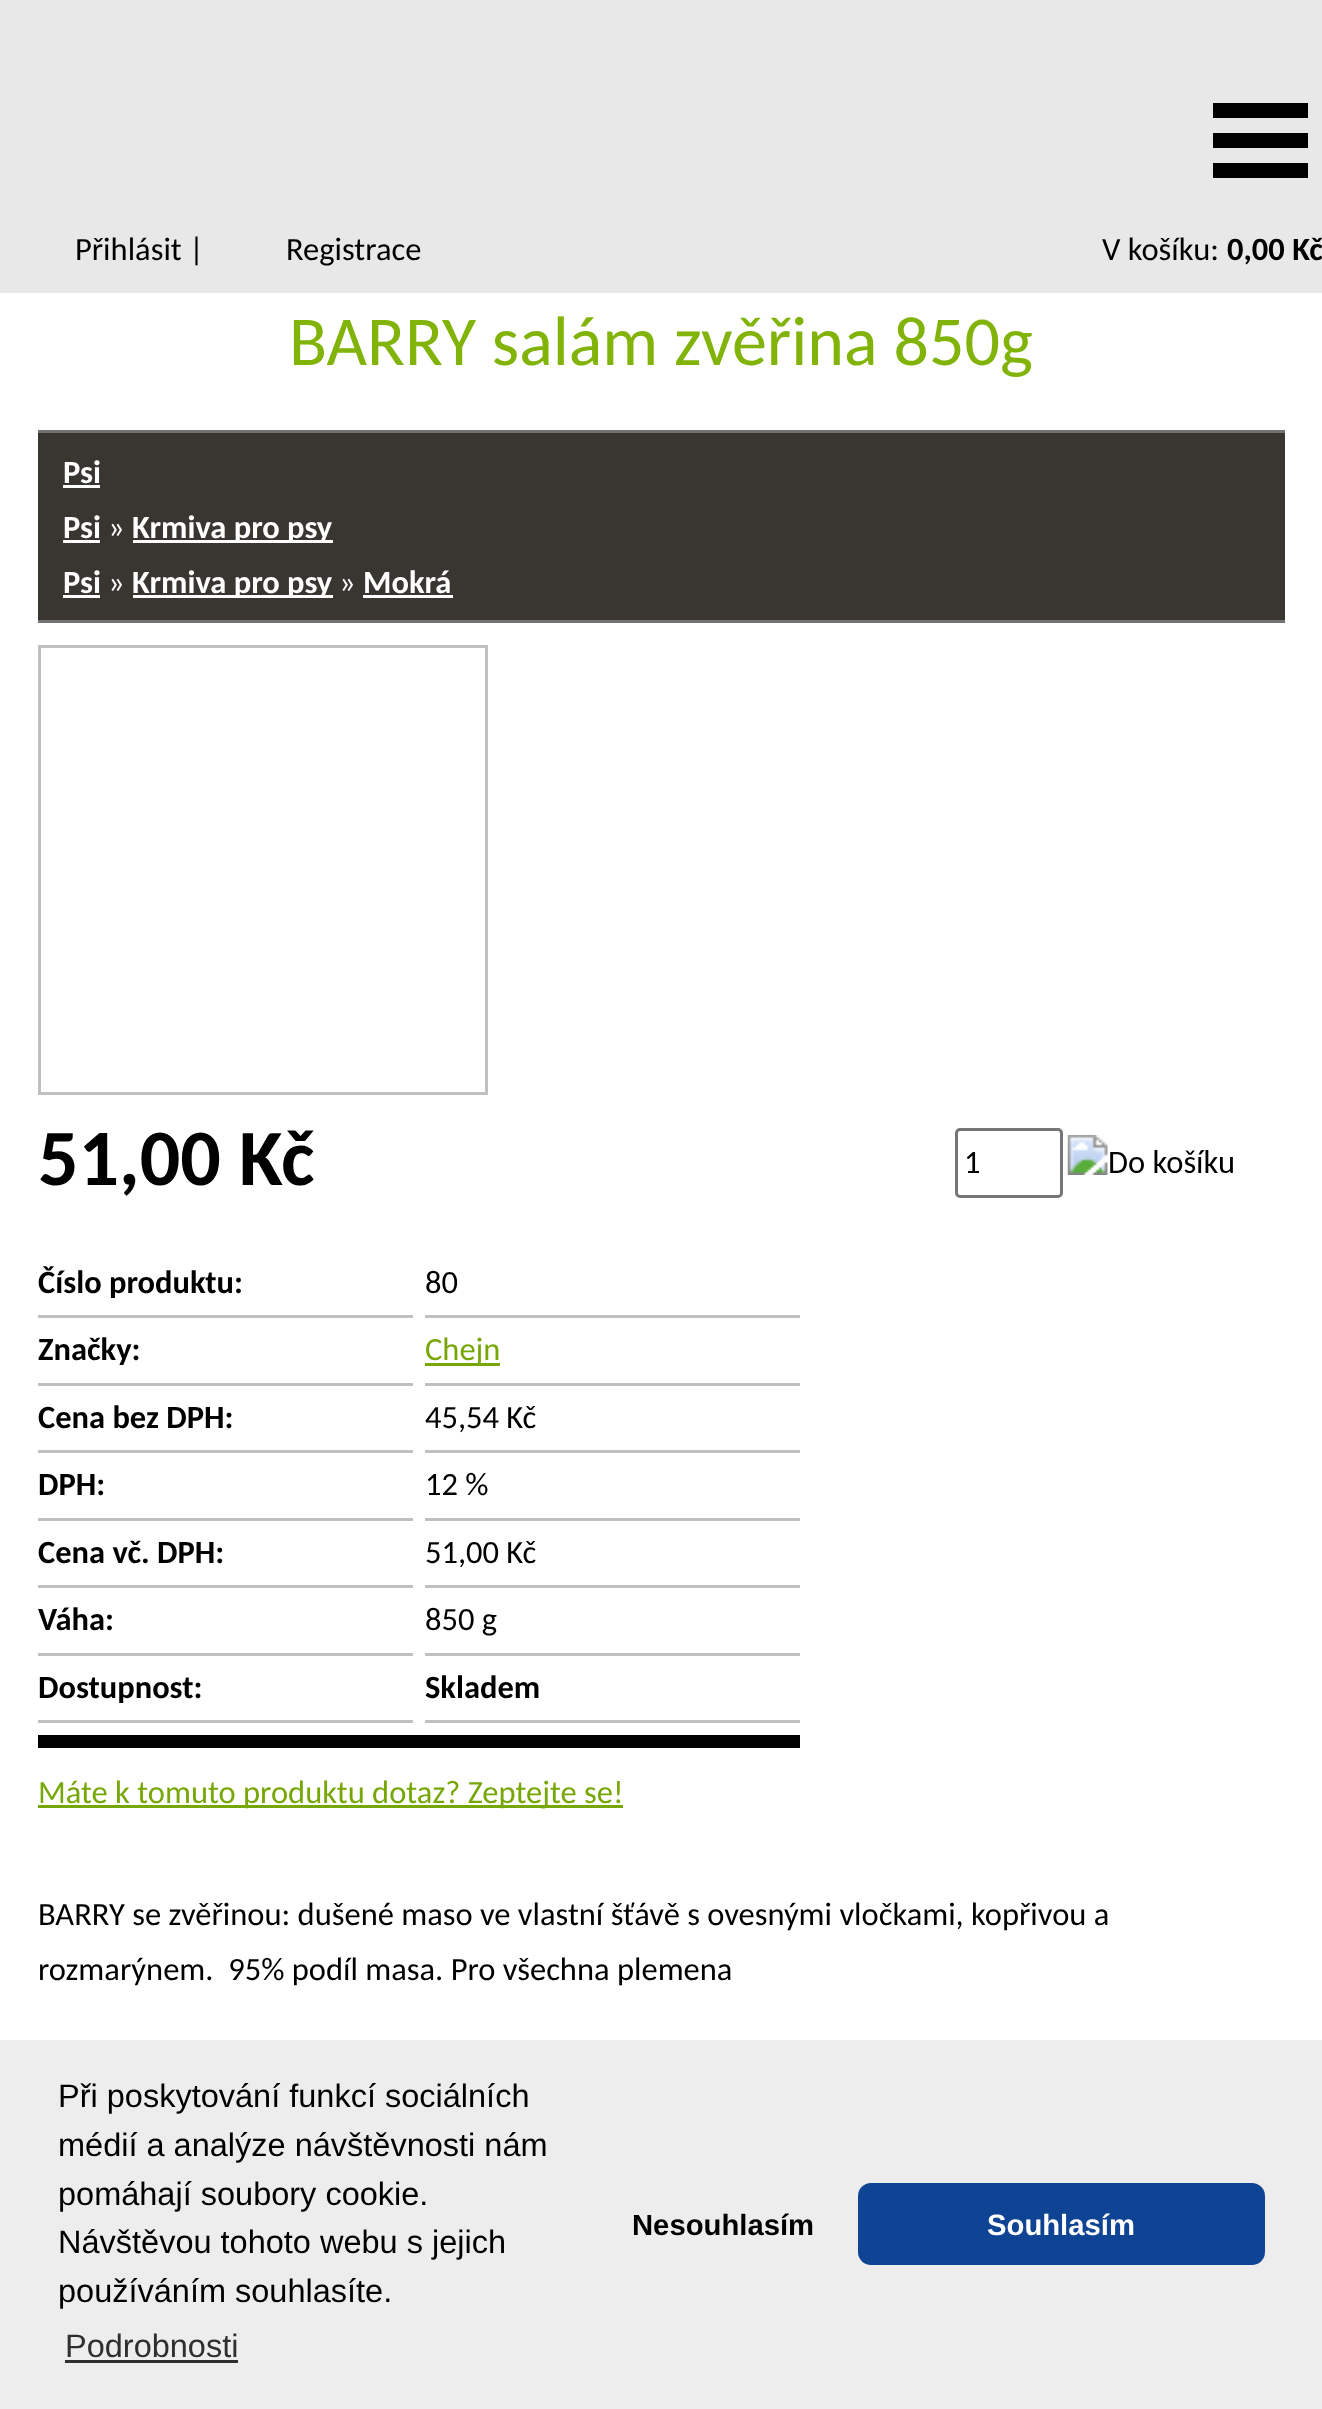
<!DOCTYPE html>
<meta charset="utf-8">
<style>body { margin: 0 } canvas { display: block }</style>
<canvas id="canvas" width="1322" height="2409"></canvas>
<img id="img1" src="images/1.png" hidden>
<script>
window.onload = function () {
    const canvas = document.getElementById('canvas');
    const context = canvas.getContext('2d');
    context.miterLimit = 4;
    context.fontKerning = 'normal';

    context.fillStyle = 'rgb(232, 232, 232)';
    context.fillRect(0, 0, 1322, 2409);
    context.fillStyle = 'rgb(0, 0, 0)';
    context.fillRect(1213, 103, 95, 15);
    context.fillRect(1213, 163, 95, 15);
    context.fillRect(1213, 133, 95, 15);
    context.fillStyle = 'rgb(255, 255, 255)';
    context.fillRect(0, 293, 1322, 1747);
    context.fillStyle = 'rgb(57, 54, 49)';
    context.fillRect(38, 433, 1247, 187);
    context.fillStyle = 'rgb(115, 115, 115)';
    context.fillRect(38, 430, 1247, 3);
    context.fillRect(38, 620, 1247, 3);
    context.fillStyle = 'rgb(255, 255, 255)';
    context.fillRect(63, 485, 37, 3);
    context.fillRect(63, 540, 37, 3);
    context.fillRect(133, 540, 200, 3);
    context.fillRect(63, 595, 37, 3);
    context.fillRect(133, 595, 200, 3);
    context.fillRect(363, 595, 90, 3);
    context.strokeStyle = 'rgb(192, 192, 192)';
    context.lineWidth = 3;
    context.strokeRect(39.5, 646.5, 447, 447);
    context.beginPath();
    context.roundRect(956.5, 1129.5, 105, 67, 3.5);
    context.strokeStyle = 'rgb(118, 118, 118)';
    context.stroke();
    context.drawImage(document.getElementById('img1'), 1067, 1135, 166, 40);
    context.fillStyle = 'rgb(0, 0, 0)';
    context.fillRect(38, 1735, 762, 13);
    context.fillStyle = 'rgb(192, 192, 192)';
    context.fillRect(38, 1315, 375, 3);
    context.fillRect(425, 1315, 375, 3);
    context.fillRect(38, 1383, 375, 3);
    context.fillRect(425, 1383, 375, 3);
    context.fillStyle = 'rgb(119, 167, 6)';
    context.fillRect(425, 1363, 75, 3);
    context.fillStyle = 'rgb(192, 192, 192)';
    context.fillRect(38, 1450, 375, 3);
    context.fillRect(425, 1450, 375, 3);
    context.fillRect(38, 1518, 375, 3);
    context.fillRect(425, 1518, 375, 3);
    context.fillRect(38, 1585, 375, 3);
    context.fillRect(425, 1585, 375, 3);
    context.fillRect(38, 1653, 375, 3);
    context.fillRect(425, 1653, 375, 3);
    context.fillRect(38, 1720, 375, 3);
    context.fillRect(425, 1720, 375, 3);
    context.fillStyle = 'rgb(119, 167, 6)';
    context.fillRect(38, 1805, 585, 3);
    context.fillStyle = 'rgb(237, 237, 237)';
    context.fillRect(0, 2040, 1322, 369);
    context.fillStyle = 'rgb(47, 47, 47)';
    context.fillRect(65, 2360, 173, 3);
    context.fillStyle = 'rgb(15, 68, 148)';
    context.beginPath();
    context.roundRect(858, 2183, 407, 82, 13);
    context.fill();
    context.font = '32.5px Carlito';
    context.fillStyle = 'rgb(0, 0, 0)';
    context.fillText('Přihlásit |', 75, 260);
    context.fillText('Registrace', 286, 260);
    context.fillText('V košíku:', 1102, 260);
    context.font = 'bold 32.5px Carlito';
    context.fillText('0,00 Kč', 1227, 260);
    context.font = '70px Carlito';
    context.fillStyle = 'rgb(129, 179, 9)';
    context.fillText('BARRY salám zvěřina 850g', 289, 365);
    context.font = 'bold 32.5px Carlito';
    context.fillStyle = 'rgb(255, 255, 255)';
    context.fillText('Psi', 63, 483);
    context.fillText('Psi', 63, 538);
    context.font = '32.5px Carlito';
    context.fillText('»', 108, 538);
    context.font = 'bold 32.5px Carlito';
    context.fillText('Krmiva pro psy', 132, 538);
    context.fillText('Psi', 63, 593);
    context.font = '32.5px Carlito';
    context.fillText('»', 108, 593);
    context.font = 'bold 32.5px Carlito';
    context.fillText('Krmiva pro psy', 132, 593);
    context.font = '32.5px Carlito';
    context.fillText('»', 339, 593);
    context.font = 'bold 32.5px Carlito';
    context.fillText('Mokrá', 363, 593);
    context.font = 'bold 80px Carlito';
    context.fillStyle = 'rgb(0, 0, 0)';
    context.fillText('51,00 Kč', 38, 1185);
    context.font = '32.5px Carlito';
    context.fillText('1', 964, 1173);
    context.font = 'bold 32.5px Carlito';
    context.fillText('Číslo produktu:', 38, 1293);
    context.font = '32.5px Carlito';
    context.fillText('80', 425, 1293);
    context.font = 'bold 32.5px Carlito';
    context.fillText('Značky:', 38, 1360);
    context.font = '32.5px Carlito';
    context.fillStyle = 'rgb(119, 167, 6)';
    context.fillText('Chejn', 425, 1360);
    context.font = 'bold 32.5px Carlito';
    context.fillStyle = 'rgb(0, 0, 0)';
    context.fillText('Cena bez DPH:', 38, 1428);
    context.font = '32.5px Carlito';
    context.fillText('45,54 Kč', 425, 1428);
    context.font = 'bold 32.5px Carlito';
    context.fillText('DPH:', 38, 1495);
    context.font = '32.5px Carlito';
    context.fillText('12 %', 425, 1495);
    context.font = 'bold 32.5px Carlito';
    context.fillText('Cena vč. DPH:', 38, 1563);
    context.font = '32.5px Carlito';
    context.fillText('51,00 Kč', 425, 1563);
    context.font = 'bold 32.5px Carlito';
    context.fillText('Váha:', 38, 1630);
    context.font = '32.5px Carlito';
    context.fillText('850 g', 425, 1630);
    context.font = 'bold 32.5px Carlito';
    context.fillText('Dostupnost:', 38, 1698);
    context.fillText('Skladem', 425, 1698);
    context.font = '32.5px Carlito';
    context.fillStyle = 'rgb(119, 167, 6)';
    context.fillText('Máte k tomuto produktu dotaz? Zeptejte se!', 38, 1803);
    context.fillStyle = 'rgb(0, 0, 0)';
    context.fillText('BARRY se zvěřinou: dušené maso ve vlastní šťávě s ovesnými vločkami, kopřivou a', 38, 1925);
    context.fillText('rozmarýnem.  95% podíl masa. Pro všechna plemena', 38, 1980);
    context.font = '32.5px Liberation Sans';
    context.fillText('Při poskytování funkcí sociálních', 58, 2107);
    context.fillText('médií a analýze návštěvnosti nám', 58, 2156);
    context.fillText('pomáhají soubory cookie.', 58, 2205);
    context.fillText('Návštěvou tohoto webu s jejich', 58, 2253);
    context.fillText('používáním souhlasíte.', 58, 2302);
    context.fillStyle = 'rgb(47, 47, 47)';
    context.fillText('Podrobnosti', 65, 2357);
    context.font = 'bold 29.25px Liberation Sans';
    context.fillStyle = 'rgb(0, 0, 0)';
    context.fillText('Nesouhlasím', 632, 2235);
    context.fillStyle = 'rgb(255, 255, 255)';
    context.fillText('Souhlasím', 987, 2235);
};
</script>
